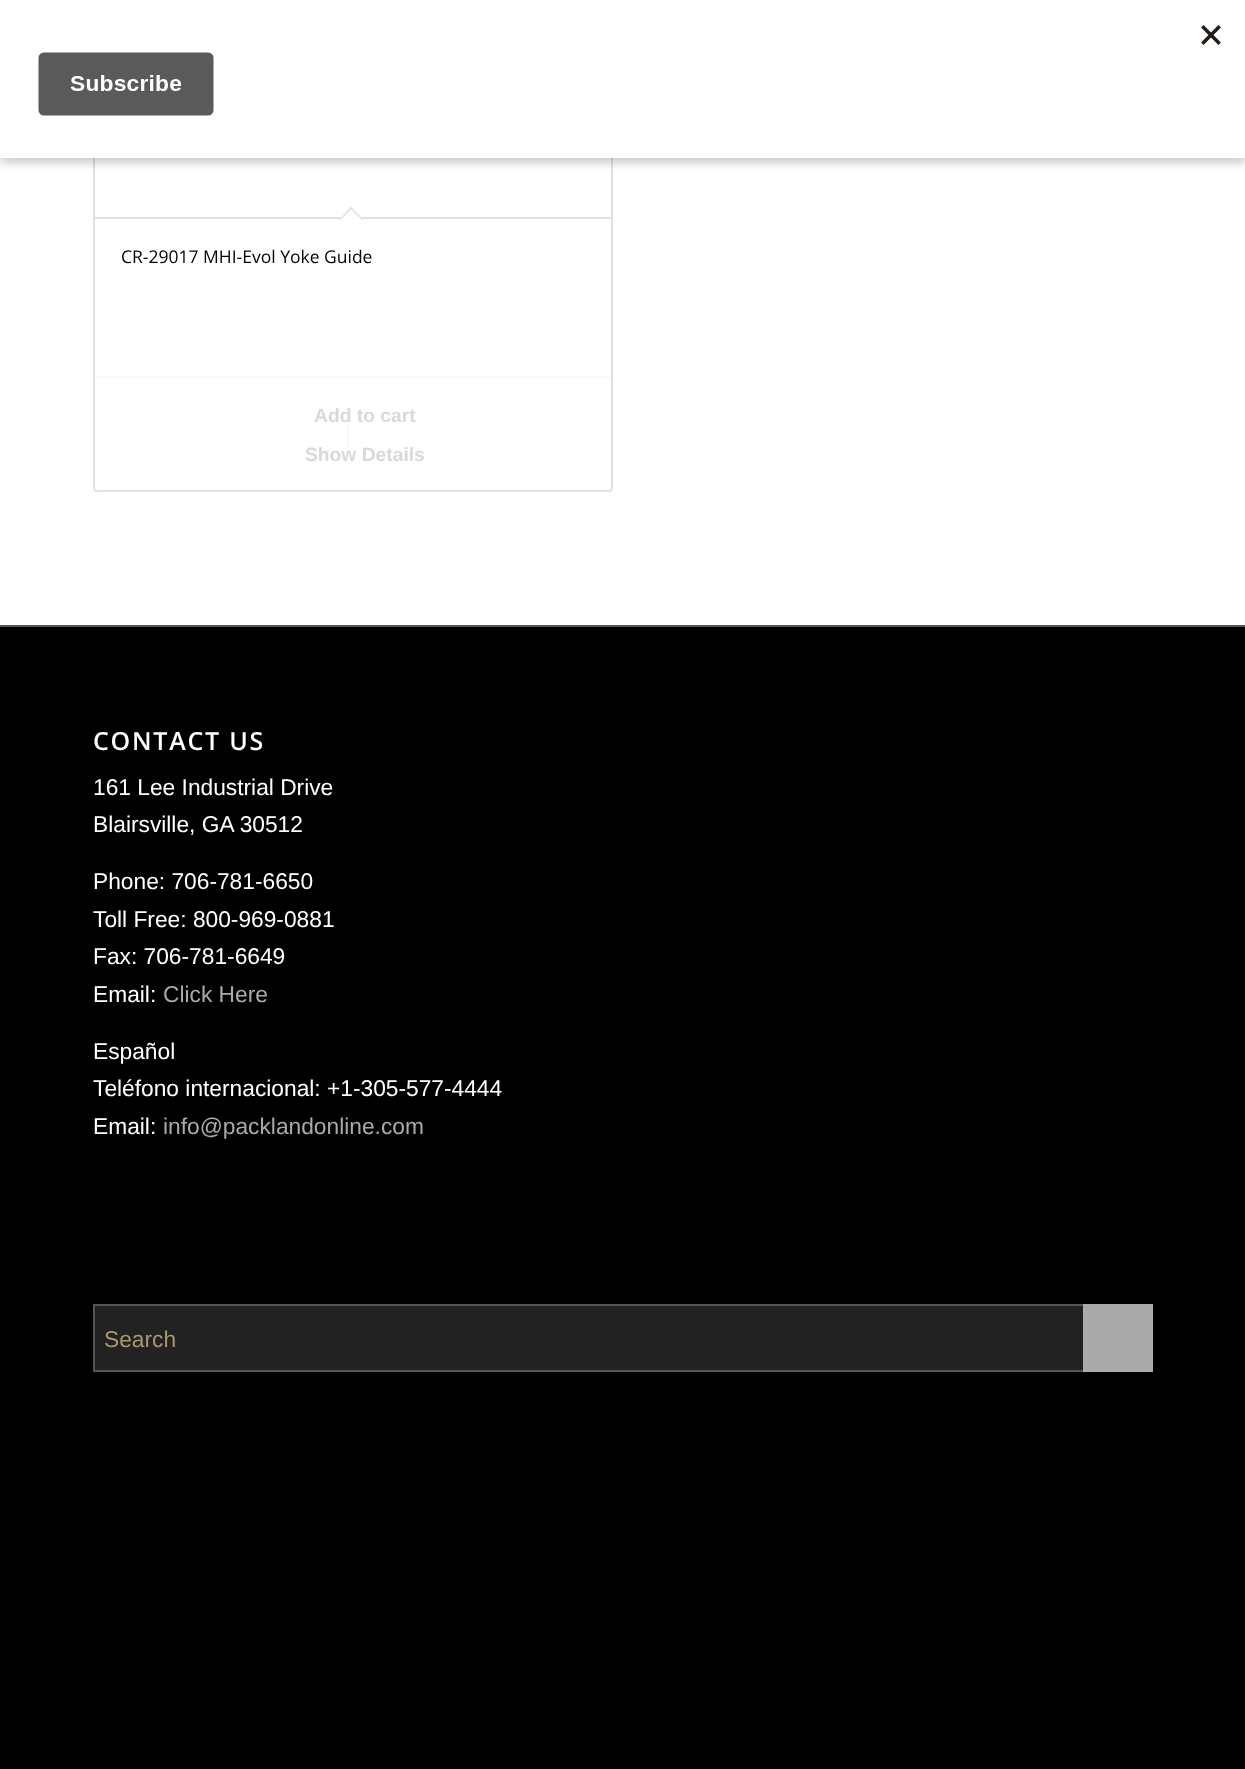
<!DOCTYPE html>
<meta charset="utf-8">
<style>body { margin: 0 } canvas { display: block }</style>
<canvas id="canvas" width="1245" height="1769"></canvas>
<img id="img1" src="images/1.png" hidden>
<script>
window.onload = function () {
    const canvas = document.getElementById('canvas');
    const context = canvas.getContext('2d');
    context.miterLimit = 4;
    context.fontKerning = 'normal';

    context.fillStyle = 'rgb(255, 255, 255)';
    context.fillRect(0, 0, 1245, 1769);
    context.beginPath();
    context.roundRect(94, -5, 518, 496, 3);
    context.strokeStyle = 'rgb(225, 225, 225)';
    context.lineWidth = 2;
    context.stroke();
    context.fillStyle = 'rgba(0, 0, 0, 0.2)';
    context.filter = 'blur(5px)';
    context.beginPath();
    context.rect(0, 5, 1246, 158);
    context.fill();
    context.filter = 'none';
    context.fillStyle = 'rgb(255, 255, 255)';
    context.fillRect(0, 0, 1245, 158);
    context.drawImage(document.getElementById('img1'), 38, 25, 1183, 91);
    context.fillStyle = 'rgb(225, 225, 225)';
    context.fillRect(95, 217, 516, 2);
    context.fillStyle = 'rgb(255, 255, 255)';
    context.beginPath();
    context.moveTo(351, 207);
    context.lineTo(363.5, 219.5);
    context.lineTo(351, 231.5);
    context.lineTo(339, 219.5);
    context.closePath();
    context.fill();
    context.fillStyle = 'rgb(225, 225, 225)';
    context.beginPath();
    context.moveTo(351, 207);
    context.lineTo(363.5, 219.5);
    context.lineTo(362.5, 220.5);
    context.lineTo(350, 208);
    context.closePath();
    context.fill();
    context.beginPath();
    context.moveTo(351, 207);
    context.lineTo(352.5, 208);
    context.lineTo(340, 220.5);
    context.lineTo(339, 219.5);
    context.closePath();
    context.fill();
    context.fillStyle = 'rgb(249, 249, 249)';
    context.fillRect(95, 376, 516, 2);
    context.fillStyle = 'rgb(0, 0, 0)';
    context.fillRect(0, 627, 1245, 1142);
    context.fillStyle = 'rgb(85, 85, 85)';
    context.fillRect(0, 625, 1245, 2);
    context.fillStyle = 'rgb(34, 34, 34)';
    context.fillRect(95, 1306, 988, 64);
    context.strokeStyle = 'rgb(85, 85, 85)';
    context.strokeRect(94, 1305, 1058, 66);
    context.fillStyle = 'rgb(170, 170, 170)';
    context.fillRect(1083, 1304, 70, 68);
    context.font = '17.5px Open Sans';
    context.fillStyle = 'rgb(10, 0, 0)';
    context.fillText('CR-29017 MHI-Evol Yoke Guide', 121, 263);
    context.font = 'bold 19.25px Liberation Sans';
    context.fillStyle = 'rgb(217, 217, 217)';
    context.fillText('Add to cart', 314, 422);
    context.fillText('Show Details', 305, 461);
    context.fillStyle = 'rgb(249, 249, 249)';
    context.fillRect(347, 424, 2, 24);
    context.letterSpacing = '1.75px';
    context.font = '600 25px Open Sans';
    context.fillStyle = 'rgb(255, 255, 255)';
    context.fillText('CONTACT US', 93, 750);
    context.letterSpacing = '0px';
    context.font = '22.75px Liberation Sans';
    context.fillText('161 Lee Industrial Drive', 93, 795);
    context.fillText('Blairsville, GA 30512', 93, 832);
    context.fillText('Phone: 706-781-6650', 93, 889);
    context.fillText('Toll Free: 800-969-0881', 93, 927);
    context.fillText('Fax: 706-781-6649', 93, 964);
    context.fillText('Email:', 93, 1002);
    context.fillStyle = 'rgb(170, 170, 170)';
    context.fillText('Click Here', 163, 1002);
    context.fillStyle = 'rgb(255, 255, 255)';
    context.fillText('Español', 93, 1059);
    context.fillText('Teléfono internacional: +1-305-577-4444', 93, 1096);
    context.fillText('Email:', 93, 1134);
    context.fillStyle = 'rgb(170, 170, 170)';
    context.fillText('info@packlandonline.com', 163, 1134);
    context.fillStyle = 'rgb(169, 152, 111)';
    context.fillText('Search', 104, 1347);
};
</script>
